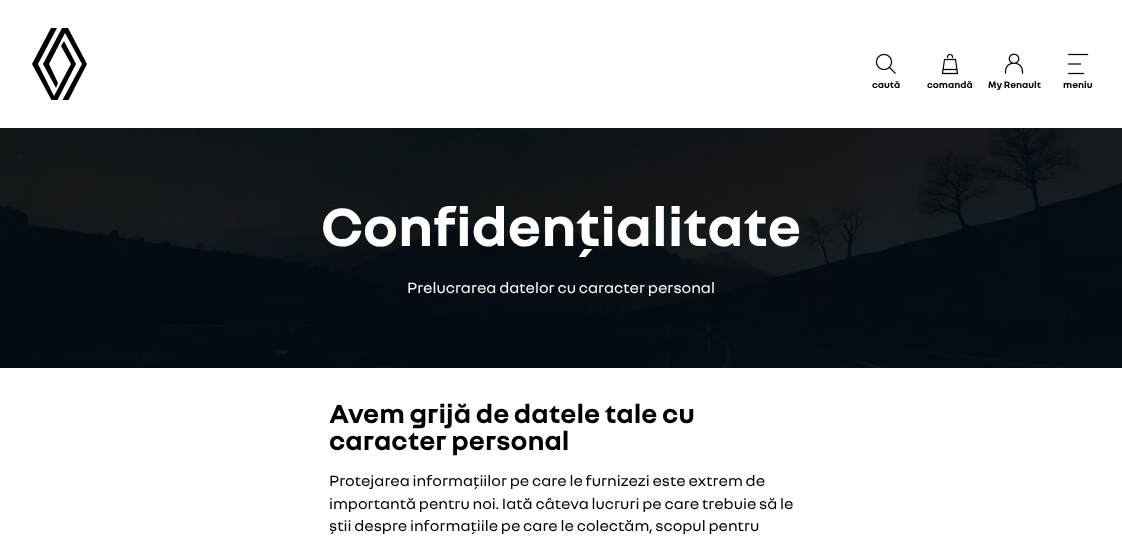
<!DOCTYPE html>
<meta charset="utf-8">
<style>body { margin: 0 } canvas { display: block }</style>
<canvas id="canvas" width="1122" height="546"></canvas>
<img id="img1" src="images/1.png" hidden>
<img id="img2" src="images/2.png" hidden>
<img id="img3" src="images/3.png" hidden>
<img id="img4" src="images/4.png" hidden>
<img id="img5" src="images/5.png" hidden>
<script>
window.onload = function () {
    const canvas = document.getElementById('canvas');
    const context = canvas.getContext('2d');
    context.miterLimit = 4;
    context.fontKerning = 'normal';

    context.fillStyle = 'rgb(255, 255, 255)';
    context.fillRect(0, 0, 1122, 546);
    context.save();
    context.beginPath();
    context.rect(32, 28, 56, 72);
    context.clip();
    context.fillStyle = 'rgb(0, 0, 0)';
    context.beginPath();
    context.moveTo(76, 64);
    context.lineTo(57, 101);
    context.lineTo(52, 101);
    context.lineTo(32, 64);
    context.lineTo(51, 28);
    context.lineTo(57, 28);
    context.lineTo(38, 64);
    context.lineTo(54, 96);
    context.lineTo(71, 64);
    context.lineTo(61, 46);
    context.lineTo(64, 41);
    context.closePath();
    context.moveTo(68, 28);
    context.lineTo(62, 28);
    context.lineTo(43, 64);
    context.lineTo(56, 88);
    context.lineTo(58, 83);
    context.lineTo(49, 64);
    context.lineTo(65, 33);
    context.lineTo(82, 64);
    context.lineTo(62, 101);
    context.lineTo(68, 101);
    context.lineTo(87, 64);
    context.closePath();
    context.fill();
    context.restore();
    context.drawImage(document.getElementById('img1'), 875, 53, 21, 21);
    context.drawImage(document.getElementById('img2'), 941, 53, 18, 22);
    context.drawImage(document.getElementById('img3'), 1004, 53, 20, 21);
    context.drawImage(document.getElementById('img4'), 1068, 53, 21, 22);
    context.fillStyle = 'rgb(0, 0, 0)';
    context.fillRect(0, 128, 1122, 240);
    context.drawImage(document.getElementById('img5'), 0, 128, 1122, 240);
    context.font = 'bold 10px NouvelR';
    context.fillText('caută', 872, 88);
    context.fillText('comandă', 927, 88);
    context.fillText('My Renault', 988, 88);
    context.fillText('meniu', 1063, 88);
    context.font = 'bold 58px NouvelR';
    context.fillStyle = 'rgb(255, 255, 255)';
    context.fillText('Confidențialitate', 321, 246);
    context.font = '16px NouvelR';
    context.fillText('Prelucrarea datelor cu caracter personal', 407, 293);
    context.font = 'bold 28px NouvelR';
    context.fillStyle = 'rgb(0, 0, 0)';
    context.fillText('Avem grijă de datele tale cu', 329, 423);
    context.fillText('caracter personal', 329, 450);
    context.font = '16px NouvelR';
    context.fillText('Protejarea informațiilor pe care le furnizezi este extrem de', 329, 486);
    context.fillText('importantă pentru noi. Iată câteva lucruri pe care trebuie să le', 329, 509);
    context.fillText('știi despre informațiile pe care le colectăm, scopul pentru', 329, 531);
};
</script>
